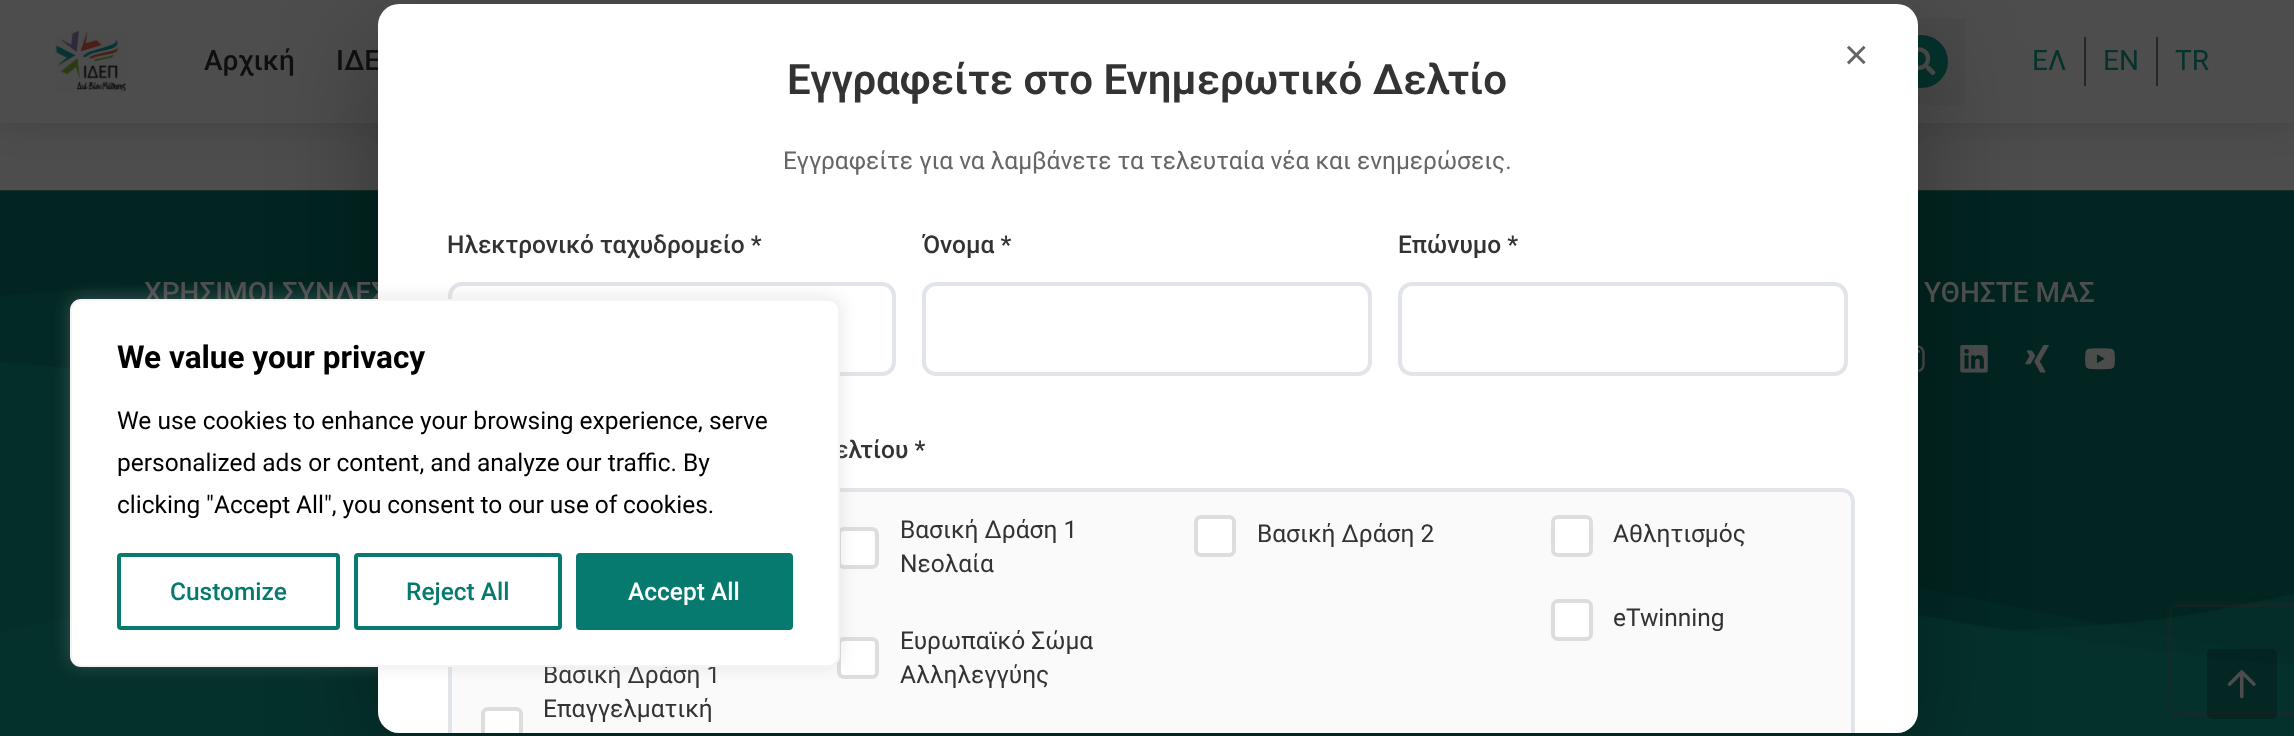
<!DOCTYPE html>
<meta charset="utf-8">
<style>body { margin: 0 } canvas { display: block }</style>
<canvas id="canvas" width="2294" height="736"></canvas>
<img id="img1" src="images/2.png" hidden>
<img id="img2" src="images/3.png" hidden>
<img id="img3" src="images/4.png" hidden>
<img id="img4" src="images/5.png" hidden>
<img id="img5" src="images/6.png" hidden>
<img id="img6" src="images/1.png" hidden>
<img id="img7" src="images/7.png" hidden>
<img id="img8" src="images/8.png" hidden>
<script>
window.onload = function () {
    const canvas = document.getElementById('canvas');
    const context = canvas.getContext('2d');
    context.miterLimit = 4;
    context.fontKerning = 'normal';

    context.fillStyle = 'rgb(77, 77, 77)';
    context.fillRect(0, 0, 2294, 736);
    context.fillStyle = 'rgba(0, 0, 0, 0.15)';
    context.filter = 'blur(17.5px)';
    context.beginPath();
    context.rect(0, 0, 2294, 123);
    context.fill();
    context.filter = 'none';
    context.fillStyle = 'rgb(77, 77, 77)';
    context.fillRect(0, 0, 2294, 123);
    context.fillStyle = 'rgb(74, 74, 74)';
    context.fillRect(1916, 18, 49, 87);
    context.fillStyle = 'rgb(5, 50, 44)';
    context.beginPath();
    context.arc(1921.5, 61.5, 26.5, 0, 2 * Math.PI);
    context.fill();
    context.drawImage(document.getElementById('img1'), 1918, 47, 18, 28);
    context.drawImage(document.getElementById('img2'), 0, 190, 2294, 546);
    context.drawImage(document.getElementById('img3'), 1918, 345, 7, 28);
    context.drawImage(document.getElementById('img4'), 1960, 345, 28, 28);
    context.drawImage(document.getElementById('img5'), 2025, 345, 24, 28);
    context.fillStyle = 'rgba(0, 0, 0, 0.3)';
    context.filter = 'blur(52.5px)';
    context.beginPath();
    context.roundRect(378, 39, 1540, 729, 21);
    context.fill();
    context.filter = 'none';
    context.drawImage(document.getElementById('img6'), 55, 30, 71, 62);
    context.fillStyle = 'rgb(38, 38, 38)';
    context.fillRect(2084, 37, 2, 49);
    context.fillRect(2156, 37, 2, 49);
    context.drawImage(document.getElementById('img7'), 2085, 348, 30, 22);
    context.save();
    context.beginPath();
    context.moveTo(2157, 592);
    context.lineTo(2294, 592);
    context.lineTo(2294, 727);
    context.lineTo(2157, 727);
    context.closePath();
    context.moveTo(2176, 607);
    context.lineTo(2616, 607);
    context.bezierCurveTo(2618, 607, 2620, 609, 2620, 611);
    context.lineTo(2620, 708);
    context.bezierCurveTo(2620, 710, 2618, 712, 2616, 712);
    context.lineTo(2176, 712);
    context.bezierCurveTo(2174, 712, 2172, 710, 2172, 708);
    context.lineTo(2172, 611);
    context.bezierCurveTo(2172, 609, 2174, 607, 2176, 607);
    context.closePath();
    context.clip('evenodd');
    context.filter = 'blur(4.5px)';
    context.beginPath();
    context.roundRect(2172, 607, 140, 105, 4);
    context.fill();
    context.filter = 'none';
    context.restore();
    context.fillStyle = 'rgba(0, 0, 0, 0.2)';
    context.beginPath();
    context.roundRect(2207, 649, 70, 70, 5);
    context.fill();
    context.drawImage(document.getElementById('img8'), 2227, 670, 29, 29);
    context.font = '500 28px Roboto';
    context.fillStyle = 'rgb(15, 15, 15)';
    context.fillText('Αρχική', 204, 70);
    context.fillText('ΙΔΕ', 336, 70);
    context.font = '28px Roboto';
    context.fillStyle = 'rgb(5, 50, 44)';
    context.fillText('ΕΛ', 2032, 70);
    context.fillText('EN', 2103, 70);
    context.fillText('TR', 2175, 70);
    context.font = '500 28px Roboto';
    context.fillStyle = 'rgb(77, 77, 77)';
    context.fillText('ΧΡΗΣΙΜΟΙ ΣΥΝΔΕΣ', 144, 302);
    context.fillStyle = 'rgb(255, 255, 255)';
    context.beginPath();
    context.roundRect(378, 4, 1540, 729, 21);
    context.fill();
    context.fillStyle = 'rgb(250, 250, 250)';
    context.beginPath();
    context.roundRect(448, 488, 1407, 245, [14, 14, 0, 0]);
    context.fill();
    context.fillStyle = 'rgb(225, 229, 233)';
    context.beginPath();
    context.moveTo(462, 488);
    context.bezierCurveTo(454, 488, 448, 494, 448, 502);
    context.lineTo(448, 733);
    context.lineTo(452, 733);
    context.lineTo(452, 502);
    context.bezierCurveTo(452, 496, 456, 492, 462, 492);
    context.lineTo(1841, 492);
    context.bezierCurveTo(1847, 492, 1851, 496, 1851, 502);
    context.lineTo(1851, 733);
    context.lineTo(1855, 733);
    context.lineTo(1855, 502);
    context.bezierCurveTo(1855, 494, 1849, 488, 1841, 488);
    context.closePath();
    context.fill();
    context.fillStyle = 'rgb(255, 255, 255)';
    context.beginPath();
    context.roundRect(1553, 601, 38, 38, 5);
    context.fill();
    context.strokeStyle = 'rgb(221, 221, 221)';
    context.lineWidth = 4;
    context.stroke();
    context.beginPath();
    context.roundRect(1553, 517, 38, 38, 5);
    context.fill();
    context.stroke();
    context.beginPath();
    context.roundRect(1196, 517, 38, 38, 5);
    context.fill();
    context.stroke();
    context.beginPath();
    context.roundRect(839, 639, 38, 38, 5);
    context.fill();
    context.stroke();
    context.beginPath();
    context.roundRect(839, 529, 38, 38, 5);
    context.fill();
    context.stroke();
    context.beginPath();
    context.roundRect(481, 707, 42, 26, [7, 7, 0, 0]);
    context.fill();
    context.fillStyle = 'rgb(221, 221, 221)';
    context.beginPath();
    context.moveTo(488, 707);
    context.bezierCurveTo(484, 707, 481, 710, 481, 714);
    context.lineTo(481, 733);
    context.lineTo(485, 733);
    context.lineTo(485, 714);
    context.bezierCurveTo(485, 712, 486, 711, 488, 711);
    context.lineTo(516, 711);
    context.bezierCurveTo(518, 711, 519, 712, 519, 714);
    context.lineTo(519, 733);
    context.lineTo(523, 733);
    context.lineTo(523, 714);
    context.bezierCurveTo(523, 710, 520, 707, 516, 707);
    context.closePath();
    context.fill();
    context.font = '42px Liberation Sans';
    context.fillStyle = 'rgb(102, 102, 102)';
    context.fillText('×', 1844, 69);
    context.font = '24.5px Roboto';
    context.fillStyle = 'rgb(51, 51, 51)';
    context.fillText('eTwinning', 1613, 626);
    context.fillText('Αθλητισμός', 1613, 542);
    context.fillText('Βασική Δράση 2', 1257, 542);
    context.fillText('Αλληλεγγύης', 900, 683);
    context.fillText('Ευρωπαϊκό Σώμα', 900, 649);
    context.fillText('Νεολαία', 900, 572);
    context.fillText('Βασική Δράση 1', 900, 538);
    context.fillText('Επαγγελματική', 543, 717);
    context.fillText('Βασική Δράση 1', 543, 683);
    context.font = '500 24.5px Roboto';
    context.fillText('ελτίου *', 835, 458);
    context.beginPath();
    context.roundRect(1400, 284, 446, 90, 12);
    context.strokeStyle = 'rgb(225, 229, 233)';
    context.stroke();
    context.fillText('Επώνυμο *', 1398, 253);
    context.beginPath();
    context.roundRect(924, 284, 446, 90, 12);
    context.stroke();
    context.fillText('Όνομα *', 923, 253);
    context.beginPath();
    context.roundRect(450, 284, 444, 90, 12);
    context.stroke();
    context.fillText('Ηλεκτρονικό ταχυδρομείο *', 447, 253);
    context.font = '24.5px Roboto';
    context.fillStyle = 'rgb(102, 102, 102)';
    context.fillText('Εγγραφείτε για να λαμβάνετε τα τελευταία νέα και ενημερώσεις.', 783, 169);
    context.font = '600 42px Roboto';
    context.fillStyle = 'rgb(51, 51, 51)';
    context.fillText('Εγγραφείτε στο Ενημερωτικό Δελτίο', 787, 94);
    context.font = '500 28px Roboto';
    context.fillStyle = 'rgb(77, 77, 77)';
    context.fillText('ΥΘΗΣΤΕ ΜΑΣ', 1924, 302);
    context.fillStyle = 'rgba(172, 171, 171, 0.3)';
    context.filter = 'blur(9px)';
    context.beginPath();
    context.roundRect(70, 298, 770, 367, 11);
    context.fill();
    context.filter = 'none';
    context.fillStyle = 'rgb(255, 255, 255)';
    context.beginPath();
    context.roundRect(71, 300, 768, 366, 10);
    context.fill();
    context.strokeStyle = 'rgb(244, 244, 244)';
    context.lineWidth = 2;
    context.stroke();
    context.font = 'bold 31.5px Roboto';
    context.fillStyle = 'rgb(0, 0, 0)';
    context.fillText('We value your privacy', 117, 368);
    context.font = '24.5px Roboto';
    context.fillText('We use cookies to enhance your browsing experience, serve', 117, 429);
    context.fillText('personalized ads or content, and analyze our traffic. By', 117, 471);
    context.wordSpacing = '-0.25px';
    context.fillText('clicking "Accept All", you consent to our use of cookies.', 117, 513);
    context.beginPath();
    context.roundRect(119, 555, 219, 73, 2);
    context.strokeStyle = 'rgb(6, 122, 111)';
    context.lineWidth = 4;
    context.stroke();
    context.wordSpacing = '0px';
    context.font = '500 24.5px Roboto';
    context.fillStyle = 'rgb(6, 122, 111)';
    context.fillText('Customize', 170, 600);
    context.beginPath();
    context.roundRect(356, 555, 204, 73, 2);
    context.stroke();
    context.fillText('Reject All', 406, 600);
    context.beginPath();
    context.roundRect(578, 555, 213, 73, 2);
    context.fill();
    context.stroke();
    context.fillStyle = 'rgb(255, 255, 255)';
    context.fillText('Accept All', 628, 600);
};
</script>
